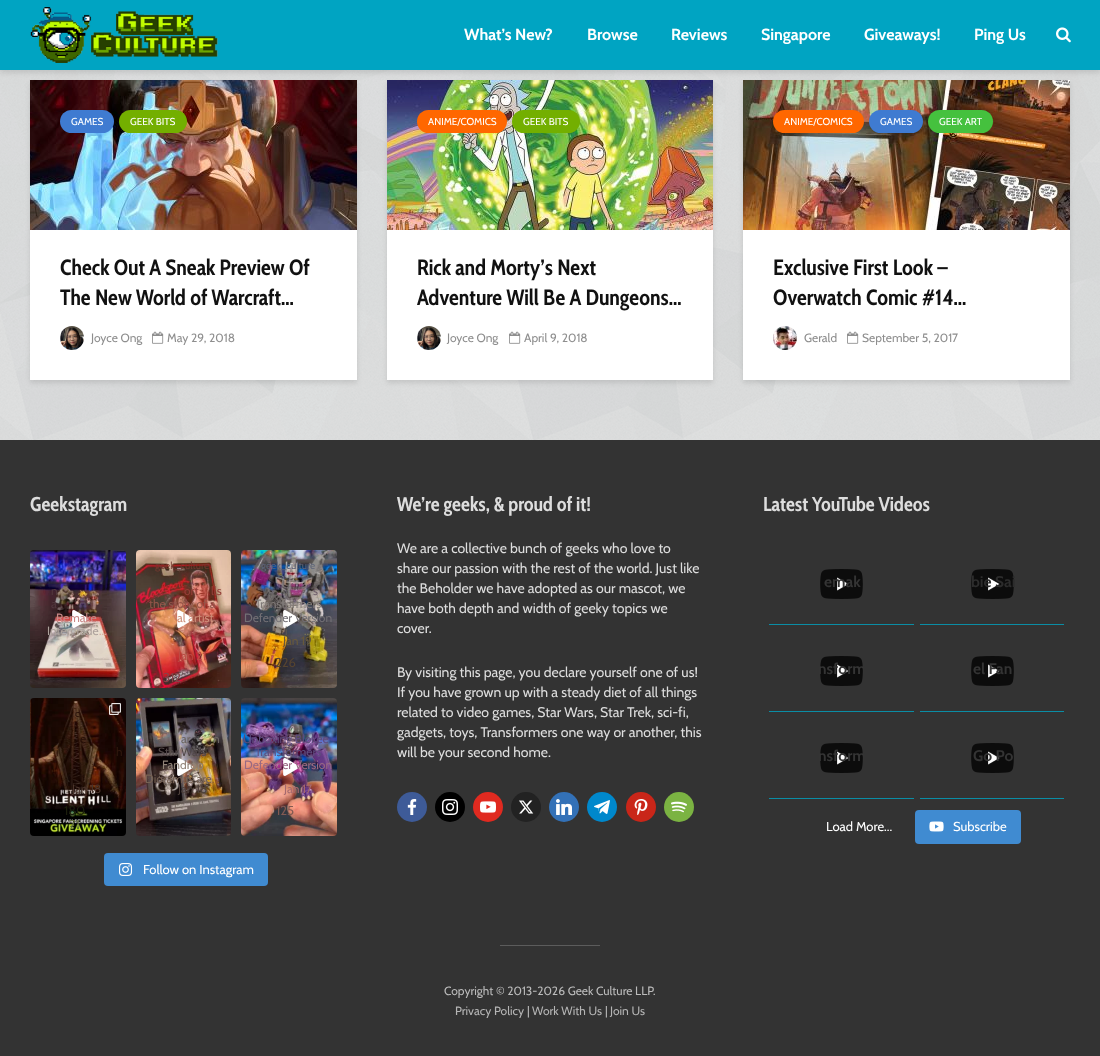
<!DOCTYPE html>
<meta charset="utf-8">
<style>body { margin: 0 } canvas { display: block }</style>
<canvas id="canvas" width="1100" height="1056"></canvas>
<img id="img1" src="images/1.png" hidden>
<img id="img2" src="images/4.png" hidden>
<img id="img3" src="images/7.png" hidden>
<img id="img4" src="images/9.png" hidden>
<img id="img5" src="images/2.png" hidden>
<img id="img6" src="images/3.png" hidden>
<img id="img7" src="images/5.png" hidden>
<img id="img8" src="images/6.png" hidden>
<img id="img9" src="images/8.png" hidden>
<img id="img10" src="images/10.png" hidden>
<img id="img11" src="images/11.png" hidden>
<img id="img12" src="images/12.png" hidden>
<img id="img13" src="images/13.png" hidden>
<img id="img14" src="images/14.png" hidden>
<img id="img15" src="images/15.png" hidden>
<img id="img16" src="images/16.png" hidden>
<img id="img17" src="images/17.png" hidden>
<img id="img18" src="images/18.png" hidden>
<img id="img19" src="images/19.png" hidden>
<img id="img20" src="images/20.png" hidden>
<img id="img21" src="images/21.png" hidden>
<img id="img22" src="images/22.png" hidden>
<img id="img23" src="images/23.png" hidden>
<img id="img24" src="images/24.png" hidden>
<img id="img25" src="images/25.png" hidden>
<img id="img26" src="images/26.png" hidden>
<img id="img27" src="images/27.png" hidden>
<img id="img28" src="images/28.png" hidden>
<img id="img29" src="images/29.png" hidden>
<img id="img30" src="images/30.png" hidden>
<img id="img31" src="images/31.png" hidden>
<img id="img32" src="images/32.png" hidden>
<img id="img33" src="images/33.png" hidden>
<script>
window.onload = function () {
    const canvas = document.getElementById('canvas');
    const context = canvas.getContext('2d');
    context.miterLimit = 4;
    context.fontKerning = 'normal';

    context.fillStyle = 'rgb(255, 255, 255)';
    context.fillRect(0, 0, 1100, 1056);
    context.drawImage(document.getElementById('img1'), 0, 70, 1100, 370);
    context.fillStyle = 'rgba(0, 1, 1, 0.1)';
    context.filter = 'blur(2.5px)';
    context.beginPath();
    context.rect(30, 83, 327, 300);
    context.fill();
    context.filter = 'none';
    context.drawImage(document.getElementById('img2'), 30, 80, 327, 150);
    context.filter = 'blur(2.5px)';
    context.beginPath();
    context.rect(387, 83, 326, 300);
    context.fill();
    context.filter = 'none';
    context.drawImage(document.getElementById('img3'), 387, 80, 326, 150);
    context.filter = 'blur(2.5px)';
    context.beginPath();
    context.rect(743, 83, 327, 300);
    context.fill();
    context.filter = 'none';
    context.drawImage(document.getElementById('img4'), 743, 80, 327, 150);
    context.filter = 'blur(2.5px)';
    context.beginPath();
    context.rect(0, 3, 1100, 70);
    context.fill();
    context.filter = 'none';
    context.fillStyle = 'rgb(0, 164, 194)';
    context.fillRect(0, 0, 1100, 70);
    context.drawImage(document.getElementById('img5'), 30, 7, 188, 56);
    context.drawImage(document.getElementById('img6'), 1056, 27, 15, 16);
    context.fillStyle = 'rgb(255, 255, 255)';
    context.fillRect(30, 230, 327, 150);
    context.fillStyle = 'rgb(63, 123, 209)';
    context.beginPath();
    context.roundRect(60, 110, 54, 23, 11.5);
    context.fill();
    context.fillStyle = 'rgb(115, 175, 0)';
    context.beginPath();
    context.roundRect(119, 110, 68, 23, 11.5);
    context.fill();
    context.drawImage(document.getElementById('img7'), 60, 326, 24, 24);
    context.drawImage(document.getElementById('img8'), 152, 331, 12, 13);
    context.fillStyle = 'rgb(255, 255, 255)';
    context.fillRect(387, 230, 326, 150);
    context.fillStyle = 'rgb(255, 103, 0)';
    context.beginPath();
    context.roundRect(417, 110, 90, 23, 11.5);
    context.fill();
    context.fillStyle = 'rgb(115, 175, 0)';
    context.beginPath();
    context.roundRect(512, 110, 68, 23, 11.5);
    context.fill();
    context.drawImage(document.getElementById('img9'), 417, 326, 24, 24);
    context.drawImage(document.getElementById('img8'), 509, 331, 12, 13);
    context.fillStyle = 'rgb(255, 255, 255)';
    context.fillRect(743, 230, 327, 150);
    context.fillStyle = 'rgb(255, 103, 0)';
    context.beginPath();
    context.roundRect(773, 110, 91, 23, 11.5);
    context.fill();
    context.fillStyle = 'rgb(63, 123, 209)';
    context.beginPath();
    context.roundRect(869, 110, 54, 23, 11.5);
    context.fill();
    context.fillStyle = 'rgb(69, 193, 62)';
    context.beginPath();
    context.roundRect(928, 110, 65, 23, 11.5);
    context.fill();
    context.drawImage(document.getElementById('img10'), 773, 326, 24, 24);
    context.drawImage(document.getElementById('img8'), 847, 331, 12, 13);
    context.fillStyle = 'rgb(51, 51, 51)';
    context.fillRect(0, 440, 1100, 616);
    context.drawImage(document.getElementById('img11'), 30, 550, 96, 138);
    context.drawImage(document.getElementById('img12'), 72, 610, 16, 18);
    context.drawImage(document.getElementById('img13'), 136, 550, 95, 138);
    context.drawImage(document.getElementById('img14'), 177, 610, 16, 18);
    context.drawImage(document.getElementById('img15'), 241, 550, 96, 138);
    context.drawImage(document.getElementById('img16'), 283, 610, 16, 18);
    context.drawImage(document.getElementById('img17'), 30, 698, 96, 138);
    context.drawImage(document.getElementById('img18'), 109, 703, 12, 12);
    context.drawImage(document.getElementById('img19'), 136, 698, 95, 138);
    context.drawImage(document.getElementById('img20'), 177, 758, 16, 18);
    context.drawImage(document.getElementById('img21'), 241, 698, 96, 138);
    context.drawImage(document.getElementById('img22'), 283, 758, 16, 18);
    context.fillStyle = 'rgb(64, 139, 209)';
    context.beginPath();
    context.roundRect(104, 853, 164, 33, 4);
    context.fill();
    context.drawImage(document.getElementById('img23'), 119, 863, 14, 13);
    context.fillStyle = 'rgb(62, 91, 152)';
    context.beginPath();
    context.arc(412, 807, 15, 0, 2 * Math.PI);
    context.fill();
    context.drawImage(document.getElementById('img24'), 407, 799, 10, 16);
    context.fillStyle = 'rgb(0, 0, 0)';
    context.beginPath();
    context.arc(450, 807, 15, 0, 2 * Math.PI);
    context.fill();
    context.drawImage(document.getElementById('img25'), 442, 799, 16, 16);
    context.fillStyle = 'rgb(224, 42, 32)';
    context.beginPath();
    context.arc(488, 807, 15, 0, 2 * Math.PI);
    context.fill();
    context.drawImage(document.getElementById('img26'), 480, 801, 16, 12);
    context.fillStyle = 'rgb(34, 34, 34)';
    context.beginPath();
    context.arc(526, 807, 15, 0, 2 * Math.PI);
    context.fill();
    context.drawImage(document.getElementById('img27'), 519, 800, 15, 14);
    context.fillStyle = 'rgb(51, 113, 183)';
    context.beginPath();
    context.arc(564, 807, 15, 0, 2 * Math.PI);
    context.fill();
    context.drawImage(document.getElementById('img28'), 556, 799, 16, 16);
    context.fillStyle = 'rgb(0, 136, 204)';
    context.beginPath();
    context.arc(602, 807, 15, 0, 2 * Math.PI);
    context.fill();
    context.drawImage(document.getElementById('img29'), 594, 800, 16, 14);
    context.fillStyle = 'rgb(201, 38, 25)';
    context.beginPath();
    context.arc(641, 807, 15, 0, 2 * Math.PI);
    context.fill();
    context.drawImage(document.getElementById('img30'), 634, 799, 14, 16);
    context.fillStyle = 'rgb(123, 179, 66)';
    context.beginPath();
    context.arc(679, 807, 15, 0, 2 * Math.PI);
    context.fill();
    context.drawImage(document.getElementById('img31'), 671, 801, 16, 12);
    context.fillStyle = 'rgb(10, 141, 165)';
    context.fillRect(769, 624, 145, 1);
    context.fillStyle = 'rgb(255, 255, 255)';
    context.beginPath();
    context.moveTo(837, 591);
    context.lineTo(837, 577);
    context.lineTo(849, 584);
    context.closePath();
    context.fill();
    context.drawImage(document.getElementById('img32'), 820, 569, 43, 30);
    context.fillStyle = 'rgb(10, 141, 165)';
    context.fillRect(920, 624, 144, 1);
    context.fillStyle = 'rgb(255, 255, 255)';
    context.beginPath();
    context.moveTo(988, 591);
    context.lineTo(988, 577);
    context.lineTo(1000, 584);
    context.closePath();
    context.fill();
    context.drawImage(document.getElementById('img32'), 971, 569, 43, 30);
    context.fillStyle = 'rgb(10, 141, 165)';
    context.fillRect(769, 711, 145, 1);
    context.fillStyle = 'rgb(255, 255, 255)';
    context.beginPath();
    context.moveTo(837, 678);
    context.lineTo(837, 664);
    context.lineTo(849, 671);
    context.closePath();
    context.fill();
    context.drawImage(document.getElementById('img32'), 820, 656, 43, 30);
    context.fillStyle = 'rgb(10, 141, 165)';
    context.fillRect(920, 711, 144, 1);
    context.fillStyle = 'rgb(255, 255, 255)';
    context.beginPath();
    context.moveTo(988, 678);
    context.lineTo(988, 664);
    context.lineTo(1000, 671);
    context.closePath();
    context.fill();
    context.drawImage(document.getElementById('img32'), 971, 656, 43, 30);
    context.fillStyle = 'rgb(10, 141, 165)';
    context.fillRect(769, 798, 145, 1);
    context.fillStyle = 'rgb(255, 255, 255)';
    context.beginPath();
    context.moveTo(837, 765);
    context.lineTo(837, 751);
    context.lineTo(849, 758);
    context.closePath();
    context.fill();
    context.drawImage(document.getElementById('img32'), 820, 743, 43, 30);
    context.fillStyle = 'rgb(10, 141, 165)';
    context.fillRect(920, 798, 144, 1);
    context.fillStyle = 'rgb(255, 255, 255)';
    context.beginPath();
    context.moveTo(988, 765);
    context.lineTo(988, 751);
    context.lineTo(1000, 758);
    context.closePath();
    context.fill();
    context.drawImage(document.getElementById('img32'), 971, 743, 43, 30);
    context.fillStyle = 'rgb(64, 139, 209)';
    context.beginPath();
    context.roundRect(915, 810, 106, 34, 4);
    context.fill();
    context.drawImage(document.getElementById('img33'), 929, 821, 15, 11);
    context.fillStyle = 'rgb(92, 92, 92)';
    context.fillRect(500, 945, 100, 1);
    context.font = 'bold 16px Cabin';
    context.fillStyle = 'rgb(255, 255, 255)';
    context.fillText('What’s New?', 464, 40);
    context.fillText('Browse', 587, 40);
    context.fillText('Reviews', 671, 40);
    context.fillText('Singapore', 761, 40);
    context.fillText('Giveaways!', 864, 40);
    context.fillText('Ping Us', 974, 40);
    context.font = '10px Cabin';
    context.fillText('GAMES', 71, 125);
    context.fillText('GEEK BITS', 130, 125);
    context.font = 'bold 22px Cabin Condensed';
    context.fillStyle = 'rgb(17, 17, 17)';
    context.fillText('Check Out A Sneak Preview Of', 60, 275);
    context.fillText('The New World of Warcraft...', 60, 305);
    context.font = '12px Cabin';
    context.fillStyle = 'rgb(142, 142, 142)';
    context.fillText('Joyce Ong', 91, 342);
    context.fillText('May 29, 2018', 167, 342);
    context.font = '10px Cabin';
    context.fillStyle = 'rgb(255, 255, 255)';
    context.fillText('ANIME/COMICS', 428, 125);
    context.fillText('GEEK BITS', 523, 125);
    context.font = 'bold 22px Cabin Condensed';
    context.fillStyle = 'rgb(17, 17, 17)';
    context.fillText('Rick and Morty’s Next', 417, 275);
    context.fillText('Adventure Will Be A Dungeons...', 417, 305);
    context.font = '12px Cabin';
    context.fillStyle = 'rgb(142, 142, 142)';
    context.fillText('Joyce Ong', 447, 342);
    context.fillText('April 9, 2018', 524, 342);
    context.font = '10px Cabin';
    context.fillStyle = 'rgb(255, 255, 255)';
    context.fillText('ANIME/COMICS', 784, 125);
    context.fillText('GAMES', 880, 125);
    context.fillText('GEEK ART', 939, 125);
    context.font = 'bold 22px Cabin Condensed';
    context.fillStyle = 'rgb(17, 17, 17)';
    context.fillText('Exclusive First Look –', 773, 275);
    context.fillText('Overwatch Comic #14...', 773, 305);
    context.font = '12px Cabin';
    context.fillStyle = 'rgb(142, 142, 142)';
    context.fillText('Gerald', 804, 342);
    context.fillText('September 5, 2017', 862, 342);
    context.font = 'bold 20px Cabin Condensed';
    context.fillStyle = 'rgb(221, 221, 221)';
    context.fillText('Geekstagram', 30, 511);
    context.font = '12px Cabin';
    context.fillStyle = 'rgb(81, 56, 62)';
    context.fillText('n', 51, 595);
    context.fillText('a', 51, 608);
    context.fillStyle = 'rgb(199, 136, 134)';
    context.fillText('Remake', 56, 622);
    context.fillStyle = 'rgb(173, 162, 156)';
    context.fillText('Intergrade', 47, 635);
    context.fillStyle = 'rgb(219, 175, 159)';
    context.fillText('...', 99, 635);
    context.font = '10px Cabin';
    context.fillStyle = 'rgb(113, 57, 47)';
    context.fillText('geek_culture', 155, 569);
    context.font = '12px Cabin';
    context.fillStyle = 'rgb(148, 63, 56)';
    context.fillText('ort', 184, 595);
    context.fillText('lls', 211, 595);
    context.fillStyle = 'rgb(149, 86, 74)';
    context.fillText('the story of a', 149, 608);
    context.fillStyle = 'rgb(206, 144, 122)';
    context.fillText('al artist', 177, 622);
    context.fillStyle = 'rgb(188, 74, 67)';
    context.fillText('Jan 21', 178, 660);
    context.font = '13px Cabin';
    context.fillStyle = 'rgb(138, 66, 72)';
    context.fillText('312', 163, 682);
    context.font = '10px Cabin';
    context.fillStyle = 'rgb(93, 100, 120)';
    context.fillText('geek_culture', 261, 569);
    context.font = '12px Cabin';
    context.fillStyle = 'rgb(113, 96, 109)';
    context.fillText('s', 313, 595);
    context.fillStyle = 'rgb(128, 122, 120)';
    context.fillText('Transformers', 255, 608);
    context.fillStyle = 'rgb(115, 112, 117)';
    context.fillText('Defender Version', 244, 622);
    context.fillStyle = 'rgb(93, 88, 83)';
    context.fillText('i', 285, 635);
    context.fillStyle = 'rgb(123, 118, 85)';
    context.fillText('...', 304, 635);
    context.fillStyle = 'rgb(105, 90, 59)';
    context.fillText('Jan 19', 283, 645);
    context.font = '13px Cabin';
    context.fillStyle = 'rgb(86, 68, 48)';
    context.fillText('226', 275, 667);
    context.font = '10px Cabin';
    context.fillStyle = 'rgb(38, 15, 8)';
    context.fillText('c', 75, 717);
    context.font = '12px Cabin';
    context.fillText('e', 80, 743);
    context.fillStyle = 'rgb(49, 24, 14)';
    context.fillText('i', 56, 756);
    context.fillText('h', 116, 756);
    context.fillStyle = 'rgb(74, 52, 43)';
    context.fillText('Jan 18', 72, 793);
    context.font = '13px Cabin';
    context.fillStyle = 'rgb(27, 30, 12)';
    context.fillText('180', 64, 815);
    context.fillStyle = 'rgb(103, 114, 69)';
    context.fillText('71', 69, 829);
    context.font = '12px Cabin';
    context.fillStyle = 'rgb(109, 102, 98)';
    context.fillText('ar', 181, 743);
    context.fillText('n', 213, 743);
    context.fillStyle = 'rgb(82, 72, 72)';
    context.fillText('Star Wars', 158, 756);
    context.fillStyle = 'rgb(144, 131, 119)';
    context.fillText('Fandrop', 162, 769);
    context.fillStyle = 'rgb(117, 97, 83)';
    context.fillText('Dioramas are', 145, 783);
    context.fillStyle = 'rgb(149, 96, 41)';
    context.fillText('...', 212, 783);
    context.fillStyle = 'rgb(78, 64, 59)';
    context.fillText('Jan 18', 178, 793);
    context.fillStyle = 'rgb(95, 78, 126)';
    context.fillText('Unboxing Blokee', 243, 743);
    context.fillText('Transformers', 255, 756);
    context.fillStyle = 'rgb(153, 105, 130)';
    context.fillText('Defender Version', 244, 769);
    context.fillStyle = 'rgb(166, 105, 110)';
    context.fillText('Jan 17', 284, 793);
    context.font = '13px Cabin';
    context.fillStyle = 'rgb(131, 90, 83)';
    context.fillText('125', 276, 815);
    context.fillStyle = 'rgb(255, 255, 255)';
    context.fillText('Follow on Instagram', 143, 874);
    context.font = 'bold 20px Cabin Condensed';
    context.fillStyle = 'rgb(221, 221, 221)';
    context.fillText('We’re geeks, & proud of it!', 397, 511);
    context.font = '14px Cabin';
    context.fillText('We are a collective bunch of geeks who love to', 397, 553);
    context.fillText('share our passion with the rest of the world. Just like', 397, 573);
    context.fillText('the Beholder we have adopted as our mascot, we', 397, 593);
    context.fillText('have both depth and width of geeky topics we', 397, 613);
    context.fillText('cover.', 397, 633);
    context.fillText('By visiting this page, you declare yourself one of us!', 397, 677);
    context.fillText('If you have grown up with a steady diet of all things', 397, 697);
    context.fillText('related to video games, Star Wars, Star Trek, sci-fi,', 397, 717);
    context.fillText('gadgets, toys, Transformers one way or another, this', 397, 737);
    context.fillText('will be your second home.', 397, 757);
    context.font = 'bold 20px Cabin Condensed';
    context.fillText('Latest YouTube Videos', 763, 511);
    context.font = 'bold 15.5px Cabin';
    context.fillStyle = 'rgb(52, 52, 52)';
    context.fillText('emak', 824, 587);
    context.fillStyle = 'rgb(44, 44, 44)';
    context.fillText('bie Sai', 971, 587);
    context.fillStyle = 'rgb(52, 52, 52)';
    context.fillText('nsform', 818, 674);
    context.fillText('el Fan', 973, 674);
    context.fillText('nsform', 818, 761);
    context.fillText('Go Po', 973, 761);
    context.font = '13px Cabin';
    context.fillStyle = 'rgb(255, 255, 255)';
    context.fillText('Load More...', 826, 831);
    context.fillText('Subscribe', 953, 831);
    context.font = '12px Cabin';
    context.fillStyle = 'rgb(187, 187, 187)';
    context.fillText('Copyright © 2013-2026 Geek Culture LLP.', 444, 995);
    context.fillStyle = 'rgb(181, 181, 181)';
    context.fillText('Privacy Policy', 455, 1015);
    context.fillStyle = 'rgb(187, 187, 187)';
    context.fillText('|', 527, 1015);
    context.fillStyle = 'rgb(181, 181, 181)';
    context.fillText('Work With Us', 532, 1015);
    context.fillStyle = 'rgb(187, 187, 187)';
    context.fillText('|', 605, 1015);
    context.fillStyle = 'rgb(181, 181, 181)';
    context.fillText('Join Us', 610, 1015);
};
</script>
